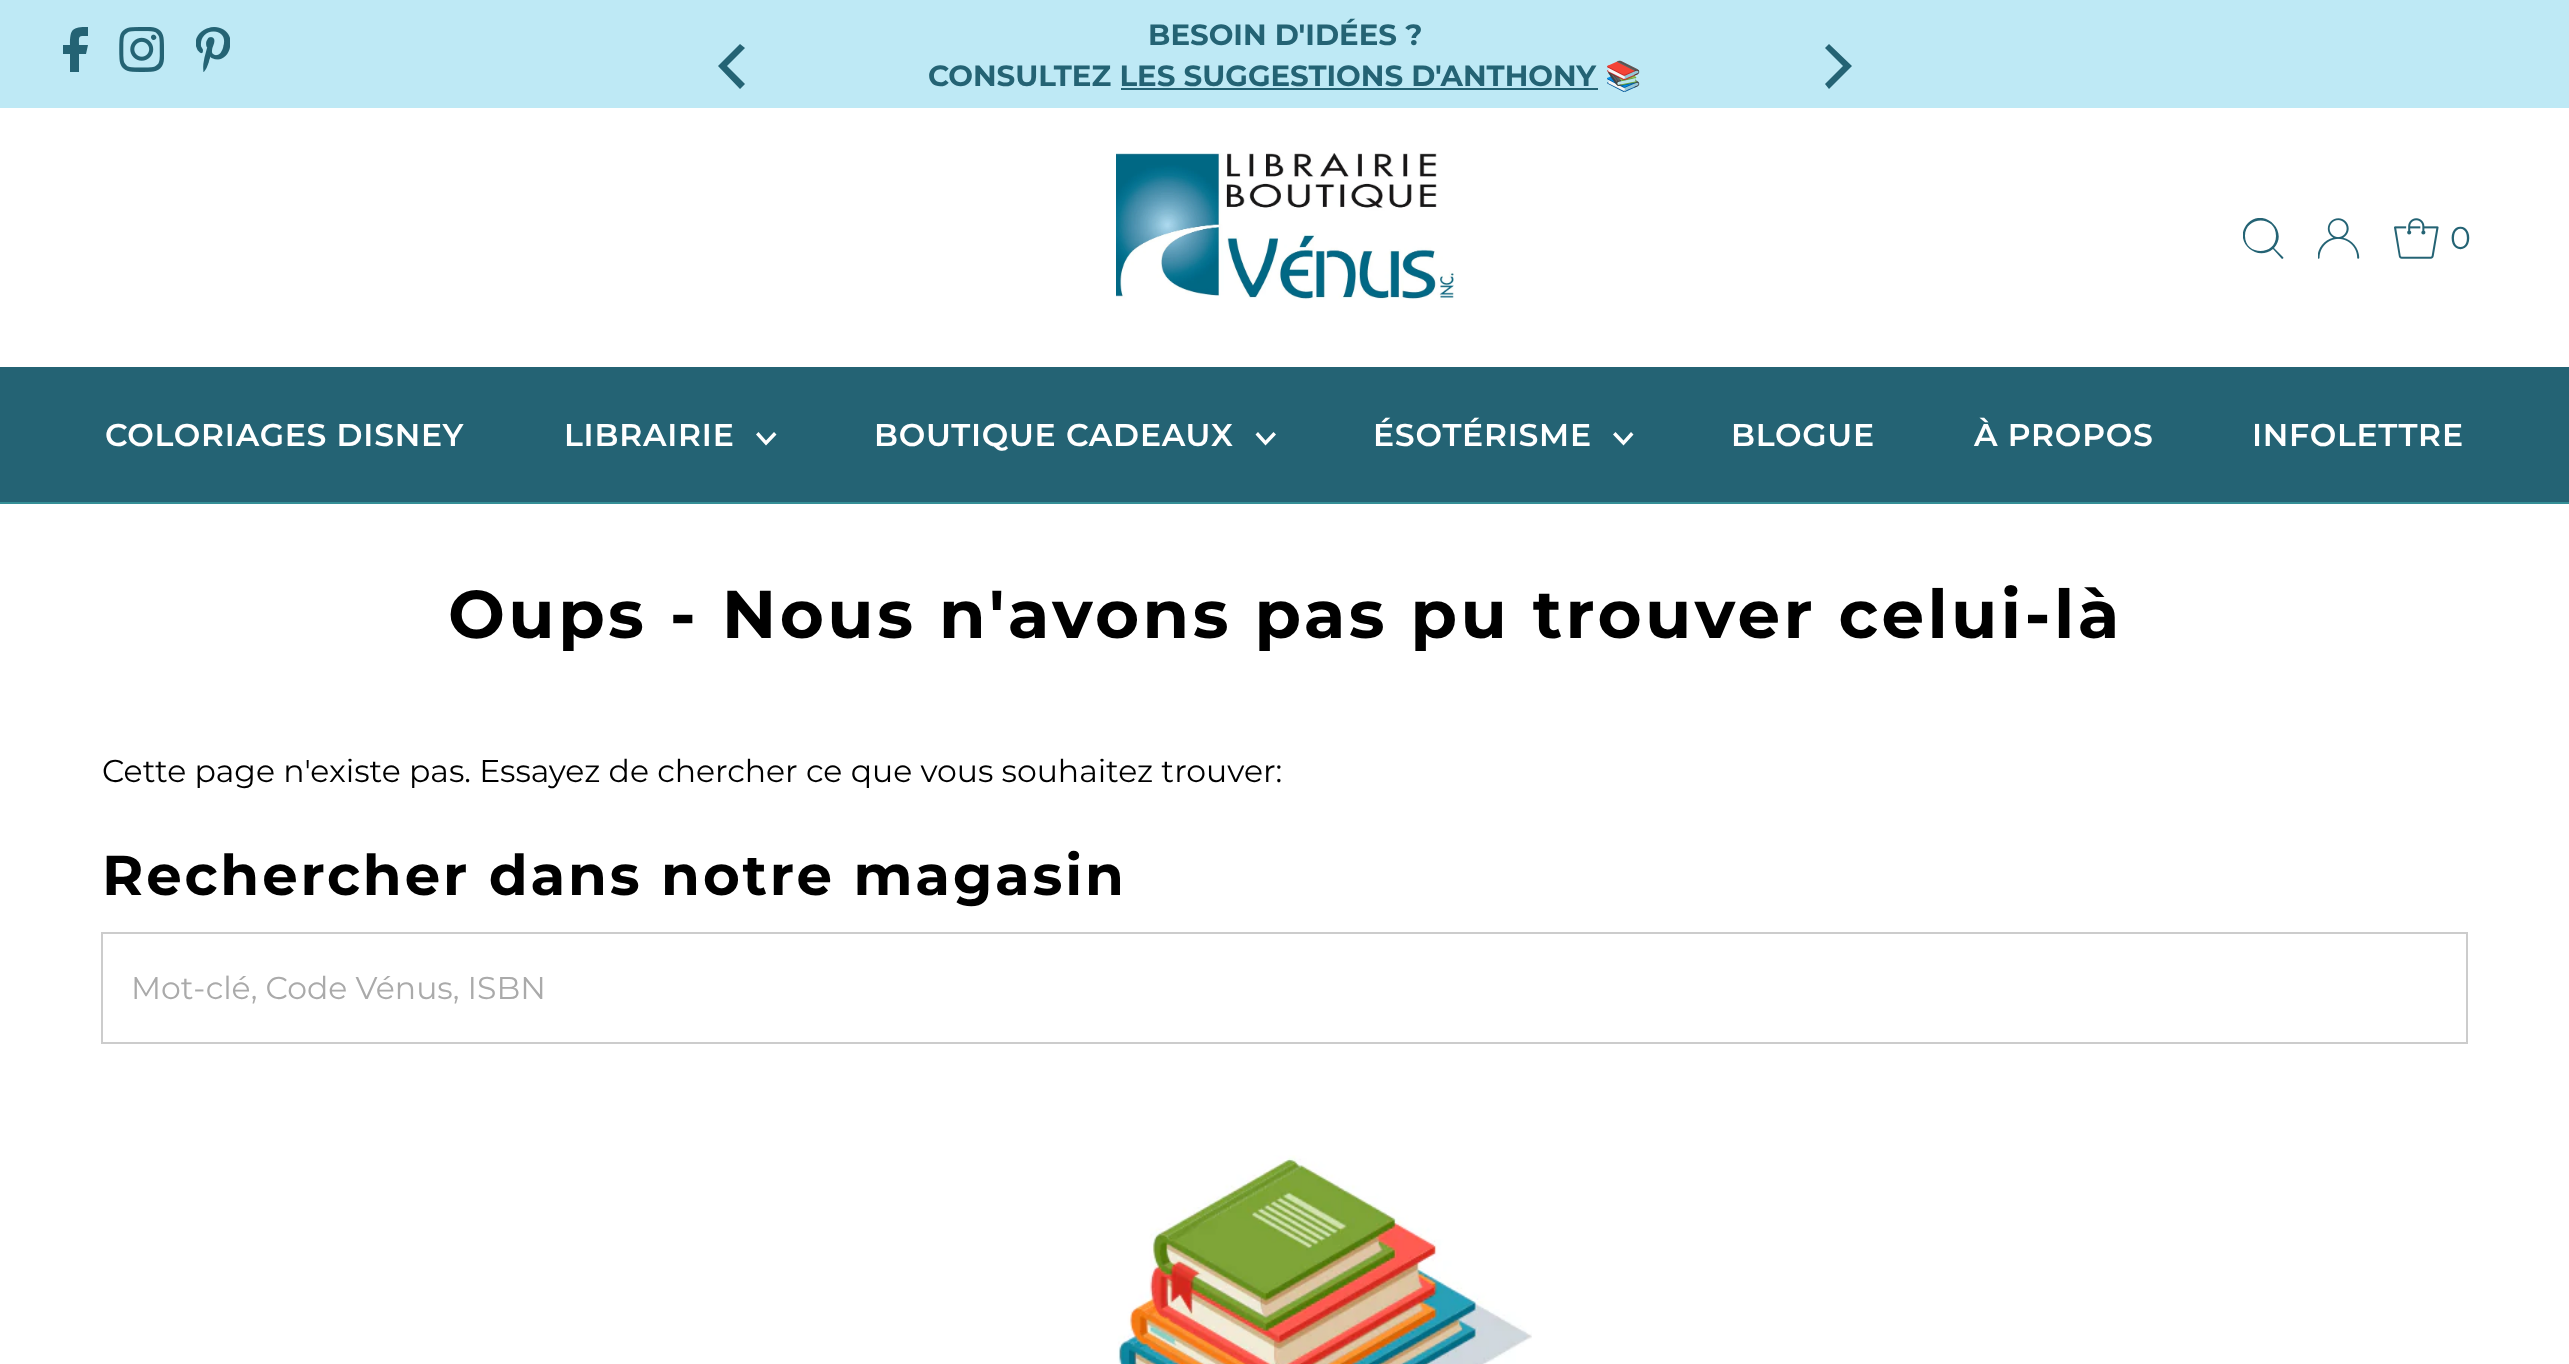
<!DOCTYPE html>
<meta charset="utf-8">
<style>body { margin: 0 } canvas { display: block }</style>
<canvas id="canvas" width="2569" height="1364"></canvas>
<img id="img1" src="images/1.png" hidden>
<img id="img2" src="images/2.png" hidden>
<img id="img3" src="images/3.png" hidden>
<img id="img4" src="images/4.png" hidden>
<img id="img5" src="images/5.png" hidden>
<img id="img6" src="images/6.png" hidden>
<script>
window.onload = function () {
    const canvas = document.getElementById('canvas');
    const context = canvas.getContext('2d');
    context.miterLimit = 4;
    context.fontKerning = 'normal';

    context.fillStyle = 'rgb(255, 255, 255)';
    context.fillRect(0, 0, 2569, 1364);
    context.fillStyle = 'rgb(190, 233, 245)';
    context.fillRect(0, 0, 2569, 108);
    context.fillStyle = 'rgb(36, 99, 116)';
    context.beginPath();
    context.moveTo(88, 27);
    context.bezierCurveTo(72, 27, 70, 29, 70, 45);
    context.lineTo(63, 45);
    context.lineTo(63, 54);
    context.lineTo(70, 54);
    context.lineTo(70, 72);
    context.lineTo(79, 72);
    context.lineTo(79, 54);
    context.lineTo(86, 54);
    context.lineTo(88, 45);
    context.lineTo(79, 45);
    context.bezierCurveTo(79, 35, 78, 36, 88, 36);
    context.closePath();
    context.fill();
    context.drawImage(document.getElementById('img1'), 119, 27, 45, 45);
    context.drawImage(document.getElementById('img2'), 196, 27, 34, 45);
    context.beginPath();
    context.moveTo(718, 66);
    context.lineTo(740, 89);
    context.lineTo(745, 84);
    context.lineTo(727, 66);
    context.lineTo(745, 48);
    context.lineTo(740, 44);
    context.closePath();
    context.fill();
    context.fillRect(1121, 88, 477, 2);
    context.beginPath();
    context.moveTo(1852, 66);
    context.lineTo(1829, 44);
    context.lineTo(1825, 48);
    context.lineTo(1843, 66);
    context.lineTo(1825, 84);
    context.lineTo(1829, 89);
    context.closePath();
    context.fill();
    context.fillStyle = 'rgb(53, 143, 151)';
    context.fillRect(0, 502, 2569, 2);
    context.drawImage(document.getElementById('img3'), 1116, 153, 338, 147);
    context.save();
    context.beginPath();
    context.rect(2243, 218, 41, 41);
    context.clip();
    context.fillStyle = 'rgb(36, 99, 116)';
    context.beginPath();
    context.moveTo(2283, 257);
    context.lineTo(2274, 248);
    context.bezierCurveTo(2289, 232, 2265, 207, 2248, 223);
    context.bezierCurveTo(2232, 240, 2256, 263, 2273, 249);
    context.lineTo(2282, 259);
    context.bezierCurveTo(2283, 259, 2284, 258, 2283, 257);
    context.closePath();
    context.moveTo(2245, 236);
    context.bezierCurveTo(2245, 216, 2276, 215, 2276, 236);
    context.bezierCurveTo(2276, 256, 2245, 256, 2245, 236);
    context.closePath();
    context.fill();
    context.restore();
    context.drawImage(document.getElementById('img4'), 2318, 218, 42, 41);
    context.drawImage(document.getElementById('img5'), 2394, 218, 45, 41);
    context.fillStyle = 'rgb(36, 99, 116)';
    context.fillRect(0, 367, 2569, 135);
    context.fillStyle = 'rgb(255, 255, 255)';
    context.beginPath();
    context.moveTo(774, 432);
    context.lineTo(766, 440.5);
    context.lineTo(758.5, 432);
    context.lineTo(756, 434.5);
    context.lineTo(766, 445.5);
    context.lineTo(776.5, 434.5);
    context.closePath();
    context.fill();
    context.beginPath();
    context.moveTo(1273.5, 432);
    context.lineTo(1265.5, 440.5);
    context.lineTo(1258, 432);
    context.lineTo(1255.5, 434.5);
    context.lineTo(1265.5, 445.5);
    context.lineTo(1276, 434.5);
    context.closePath();
    context.fill();
    context.beginPath();
    context.moveTo(1631, 432);
    context.lineTo(1623.5, 440.5);
    context.lineTo(1615.5, 432);
    context.lineTo(1613, 434.5);
    context.lineTo(1623.5, 445.5);
    context.lineTo(1633.5, 434.5);
    context.closePath();
    context.fill();
    context.strokeStyle = 'rgb(204, 204, 204)';
    context.lineWidth = 2;
    context.strokeRect(102, 933, 2365, 110);
    context.drawImage(document.getElementById('img6'), 1117, 1155, 415, 209);
    context.font = 'bold 29.25px Montserrat';
    context.fillStyle = 'rgb(36, 99, 116)';
    context.fillText('BESOIN D\'IDÉES ?', 1148, 45);
    context.fillText('CONSULTEZ LES SUGGESTIONS D\'ANTHONY', 928, 86);
    context.font = 'bold 29.25px Noto Color Emoji';
    context.fillText('📚', 1605, 86);
    context.font = '31.5px Montserrat';
    context.fillText('0', 2450, 249);
    context.letterSpacing = '0.75px';
    context.font = '600 31.5px Montserrat';
    context.fillStyle = 'rgb(255, 255, 255)';
    context.fillText('COLORIAGES DISNEY', 105, 446);
    context.fillText('LIBRAIRIE', 564, 446);
    context.fillText('BOUTIQUE CADEAUX', 874, 446);
    context.fillText('ÉSOTÉRISME', 1373, 446);
    context.fillText('BLOGUE', 1731, 446);
    context.fillText('À PROPOS', 1974, 446);
    context.fillText('INFOLETTRE', 2252, 446);
    context.letterSpacing = '3.4px';
    context.font = 'bold 67.5px Montserrat';
    context.fillStyle = 'rgb(0, 0, 0)';
    context.fillText('Oups - Nous n\'avons pas pu trouver celui-là', 448, 638);
    context.letterSpacing = '0px';
    context.font = '31.5px Montserrat';
    context.fillText('Cette page n\'existe pas. Essayez de chercher ce que vous souhaitez trouver:', 102, 782);
    context.letterSpacing = '2.8px';
    context.font = 'bold 56.25px Montserrat';
    context.fillText('Rechercher dans notre magasin', 102, 895);
    context.letterSpacing = '0px';
    context.font = '31.5px Montserrat';
    context.fillStyle = 'rgb(170, 170, 170)';
    context.fillText('Mot-clé, Code Vénus, ISBN', 131, 999);
};
</script>
